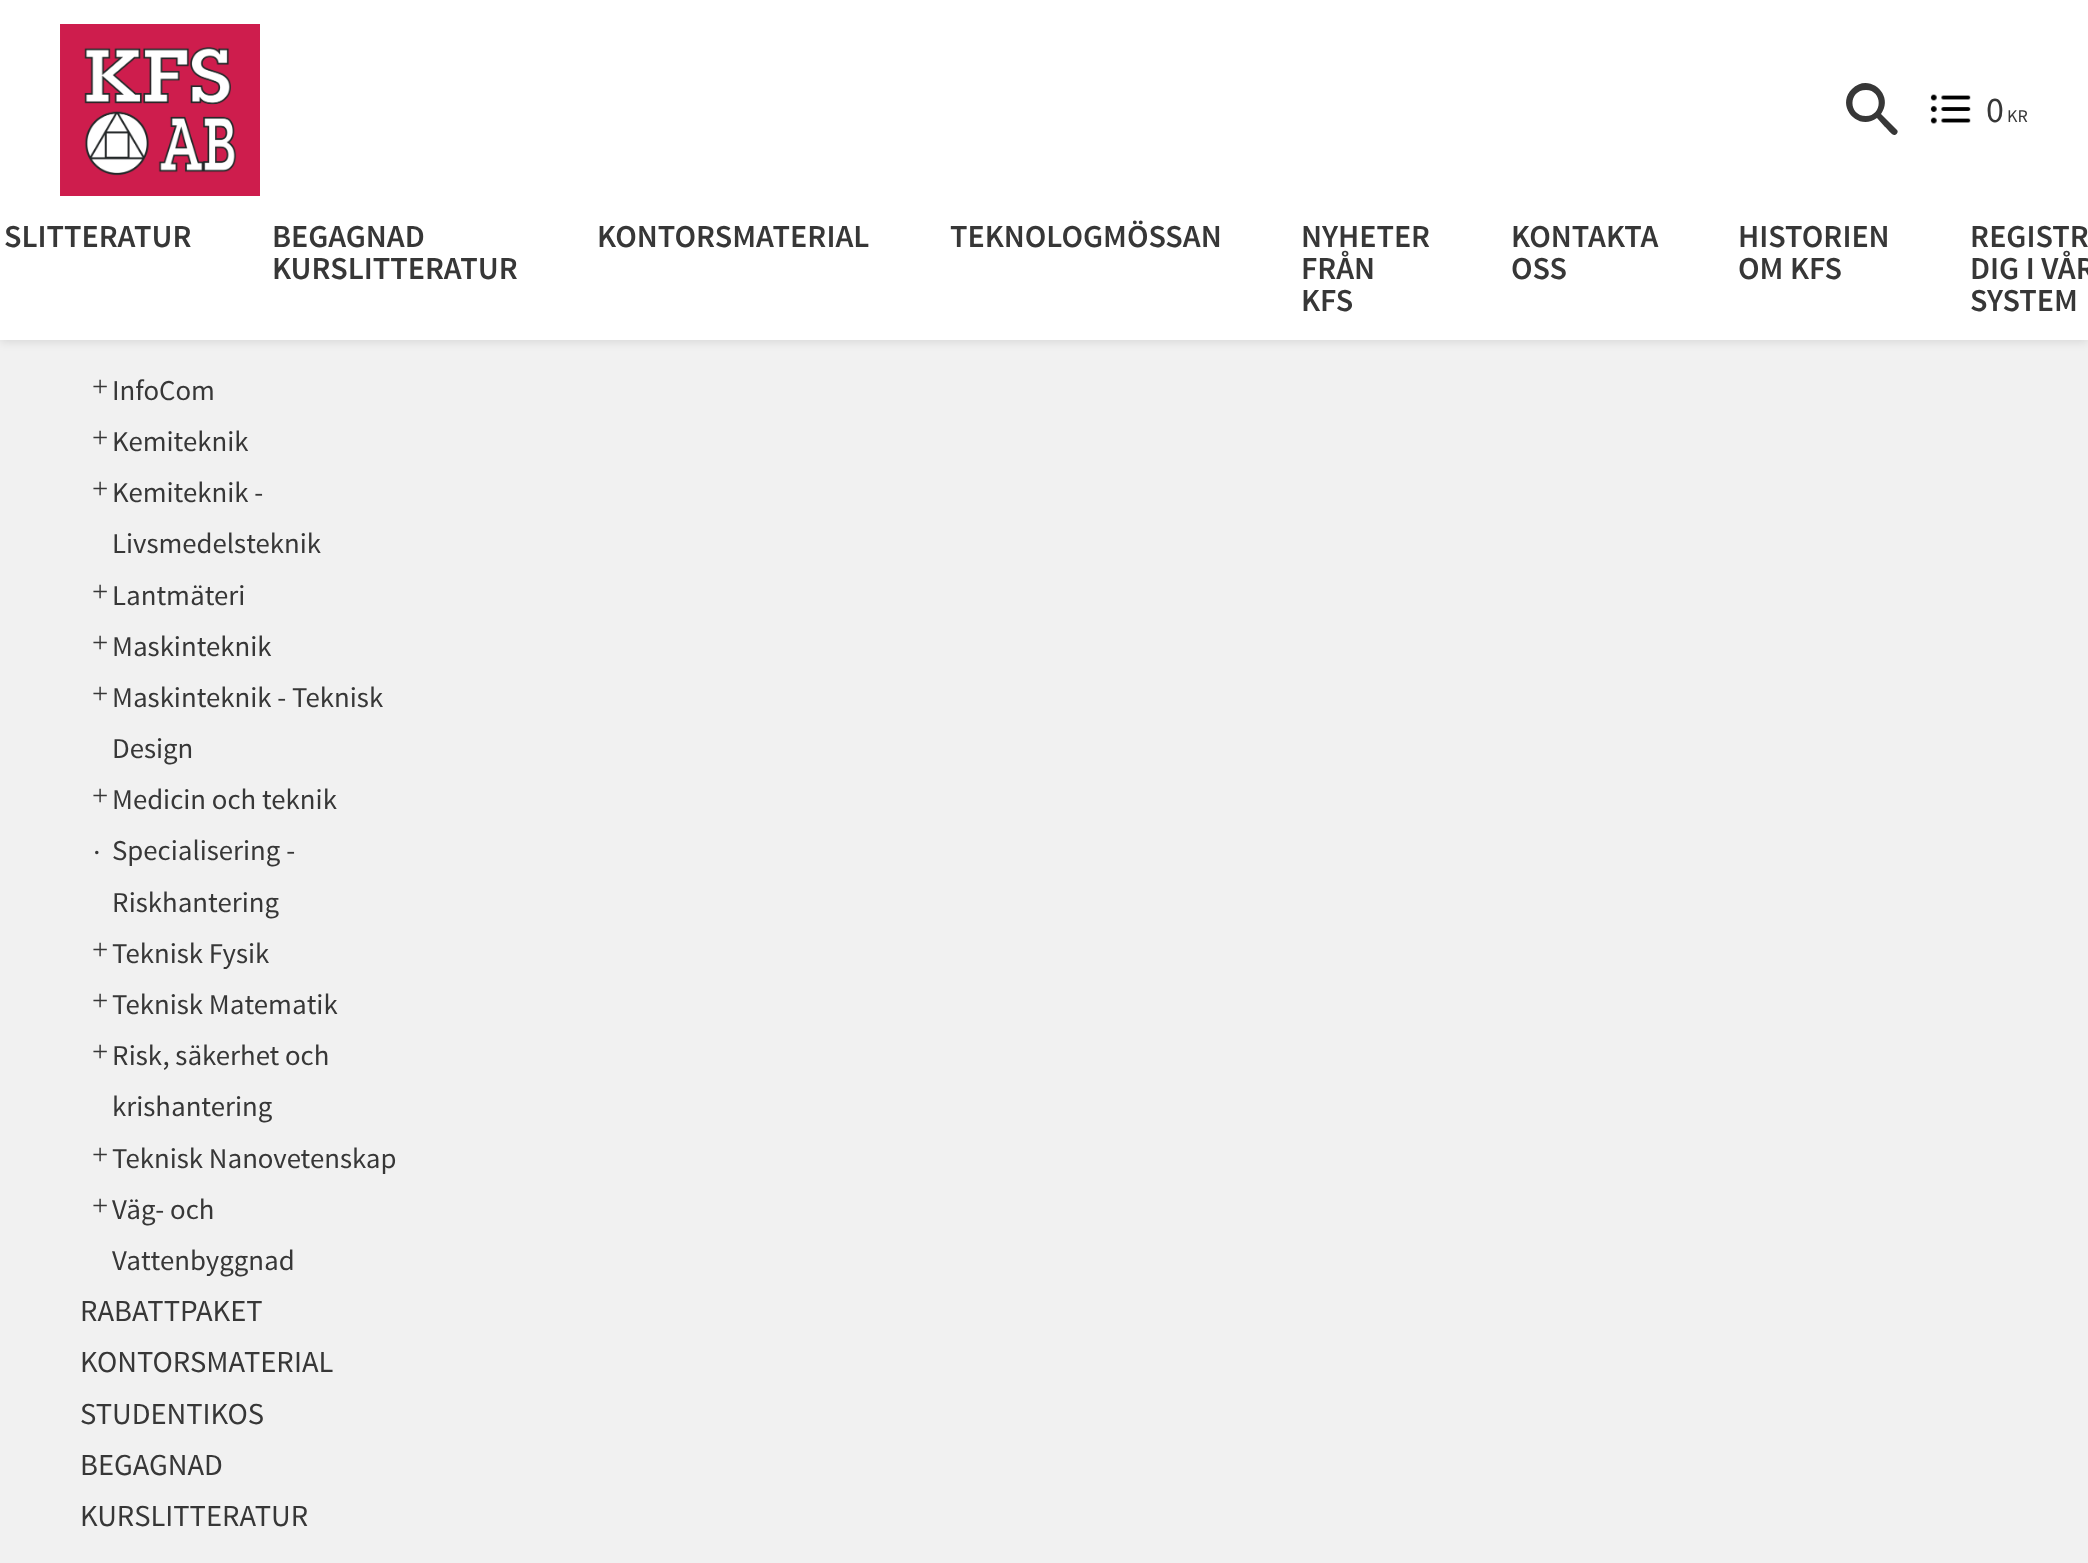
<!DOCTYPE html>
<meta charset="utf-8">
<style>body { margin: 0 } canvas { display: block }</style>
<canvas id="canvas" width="2088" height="1563"></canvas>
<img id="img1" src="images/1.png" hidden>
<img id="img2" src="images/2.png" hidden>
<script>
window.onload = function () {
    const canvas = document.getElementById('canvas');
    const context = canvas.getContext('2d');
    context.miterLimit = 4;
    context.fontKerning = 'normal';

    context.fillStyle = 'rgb(241, 241, 241)';
    context.fillRect(0, 0, 2088, 1563);
    context.fillStyle = 'rgba(0, 0, 0, 0.1)';
    context.filter = 'blur(5px)';
    context.beginPath();
    context.rect(0, -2, 2088, 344);
    context.fill();
    context.filter = 'none';
    context.fillStyle = 'rgb(255, 255, 255)';
    context.fillRect(0, 0, 2088, 340);
    context.drawImage(document.getElementById('img1'), 60, 24, 200, 172);
    context.fillStyle = 'rgb(55, 55, 55)';
    context.beginPath();
    context.moveTo(1897, 130);
    context.bezierCurveTo(1899, 132, 1896, 135, 1895, 135);
    context.bezierCurveTo(1892, 136, 1887, 128, 1885, 127);
    context.lineTo(1877, 118);
    context.bezierCurveTo(1858, 132, 1835, 106, 1852, 89);
    context.bezierCurveTo(1869, 72, 1895, 95, 1881, 114);
    context.closePath();
    context.moveTo(1866, 90);
    context.bezierCurveTo(1848, 90, 1848, 116, 1866, 116);
    context.bezierCurveTo(1883, 116, 1883, 90, 1866, 90);
    context.closePath();
    context.fill();
    context.drawImage(document.getElementById('img2'), 1930, 94, 41, 30);
    context.font = '36px Source Sans Pro';
    context.fillText('0', 1986, 122);
    context.font = '18px Source Sans Pro';
    context.fillText('KR', 2007, 122);
    context.font = '600 32px Source Sans Pro';
    context.fillText('SLITTERATUR', 4, 247);
    context.fillText('BEGAGNAD', 272, 247);
    context.fillText('KURSLITTERATUR', 272, 279);
    context.fillText('KONTORSMATERIAL', 597, 247);
    context.fillText('TEKNOLOGMÖSSAN', 950, 247);
    context.fillText('NYHETER', 1301, 247);
    context.fillText('FRÅN', 1301, 279);
    context.fillText('KFS', 1301, 311);
    context.fillText('KONTAKTA', 1511, 247);
    context.fillText('OSS', 1511, 279);
    context.fillText('HISTORIEN', 1738, 247);
    context.fillText('OM KFS', 1738, 279);
    context.fillText('REGISTR', 1970, 247);
    context.fillText('DIG I VÅR', 1970, 279);
    context.fillText('SYSTEM', 1970, 311);
    context.font = '28.75px Liberation Serif';
    context.fillText('+', 92, 396);
    context.font = '28.75px Source Sans Pro';
    context.fillText('InfoCom', 112, 400);
    context.font = '28.75px Liberation Serif';
    context.fillText('+', 92, 447);
    context.font = '28.75px Source Sans Pro';
    context.fillText('Kemiteknik', 112, 451);
    context.font = '28.75px Liberation Serif';
    context.fillText('+', 92, 498);
    context.font = '28.75px Source Sans Pro';
    context.fillText('Kemiteknik -', 112, 502);
    context.fillText('Livsmedelsteknik', 112, 553);
    context.font = '28.75px Liberation Serif';
    context.fillText('+', 92, 601);
    context.font = '28.75px Source Sans Pro';
    context.fillText('Lantmäteri', 112, 605);
    context.font = '28.75px Liberation Serif';
    context.fillText('+', 92, 652);
    context.font = '28.75px Source Sans Pro';
    context.fillText('Maskinteknik', 112, 656);
    context.font = '28.75px Liberation Serif';
    context.fillText('+', 92, 703);
    context.font = '28.75px Source Sans Pro';
    context.fillText('Maskinteknik - Teknisk', 112, 707);
    context.fillText('Design', 112, 758);
    context.font = '28.75px Liberation Serif';
    context.fillText('+', 92, 805);
    context.font = '28.75px Source Sans Pro';
    context.fillText('Medicin och teknik', 112, 809);
    context.font = '28.75px Liberation Serif';
    context.fillText('·', 92, 862);
    context.font = '28.75px Source Sans Pro';
    context.fillText('Specialisering -', 112, 860);
    context.fillText('Riskhantering', 112, 912);
    context.font = '28.75px Liberation Serif';
    context.fillText('+', 92, 959);
    context.font = '28.75px Source Sans Pro';
    context.fillText('Teknisk Fysik', 112, 963);
    context.font = '28.75px Liberation Serif';
    context.fillText('+', 92, 1010);
    context.font = '28.75px Source Sans Pro';
    context.fillText('Teknisk Matematik', 112, 1014);
    context.font = '28.75px Liberation Serif';
    context.fillText('+', 92, 1061);
    context.font = '28.75px Source Sans Pro';
    context.fillText('Risk, säkerhet och', 112, 1065);
    context.fillText('krishantering', 112, 1116);
    context.font = '28.75px Liberation Serif';
    context.fillText('+', 92, 1164);
    context.font = '28.75px Source Sans Pro';
    context.fillText('Teknisk Nanovetenskap', 112, 1168);
    context.font = '28.75px Liberation Serif';
    context.fillText('+', 92, 1215);
    context.font = '28.75px Source Sans Pro';
    context.fillText('Väg- och', 112, 1219);
    context.fillText('Vattenbyggnad', 112, 1270);
    context.font = '30.5px Source Sans Pro';
    context.fillText('RABATTPAKET', 80, 1321);
    context.fillText('KONTORSMATERIAL', 80, 1372);
    context.fillText('STUDENTIKOS', 80, 1424);
    context.fillText('BEGAGNAD', 80, 1475);
    context.fillText('KURSLITTERATUR', 80, 1526);
};
</script>
